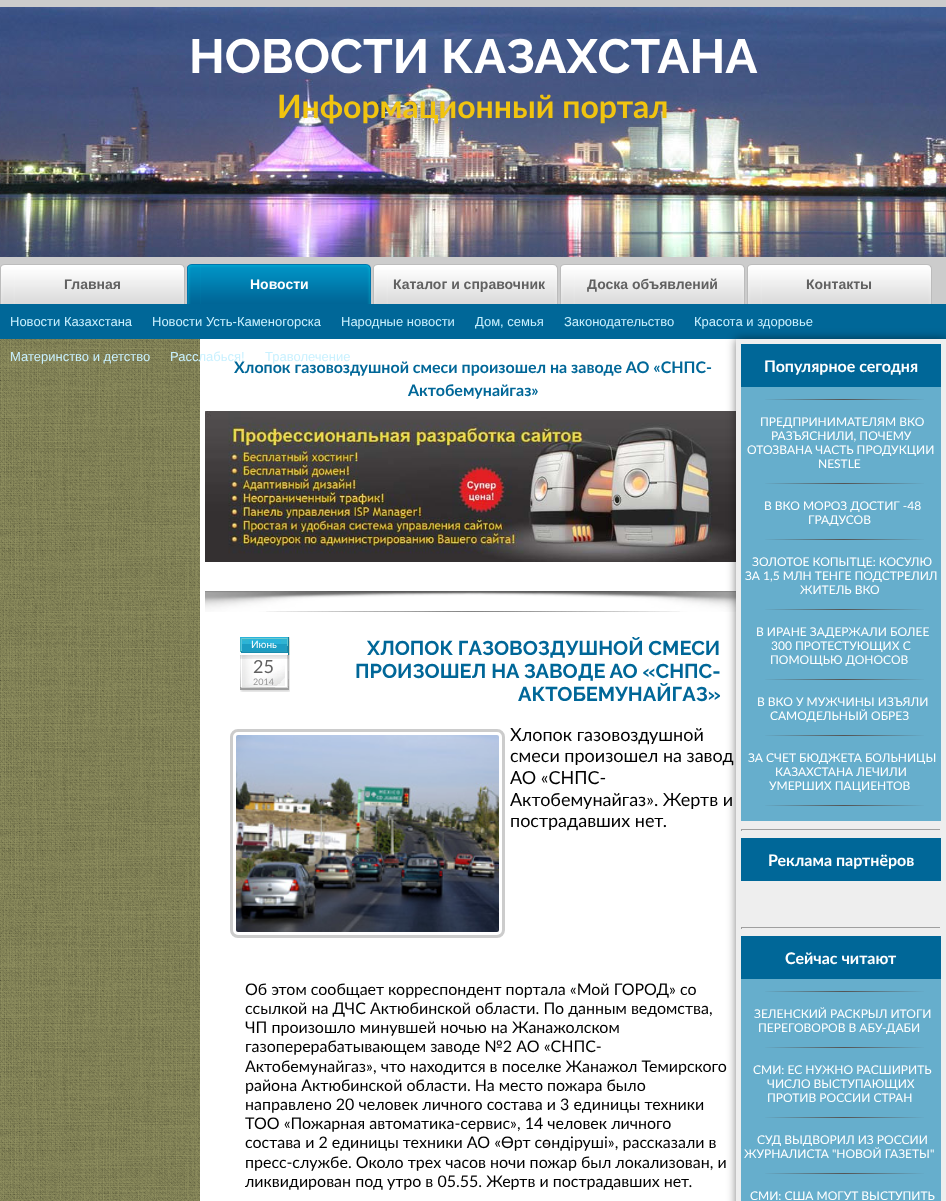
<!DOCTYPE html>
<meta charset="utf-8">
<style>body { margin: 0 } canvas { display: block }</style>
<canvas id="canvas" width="946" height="1201"></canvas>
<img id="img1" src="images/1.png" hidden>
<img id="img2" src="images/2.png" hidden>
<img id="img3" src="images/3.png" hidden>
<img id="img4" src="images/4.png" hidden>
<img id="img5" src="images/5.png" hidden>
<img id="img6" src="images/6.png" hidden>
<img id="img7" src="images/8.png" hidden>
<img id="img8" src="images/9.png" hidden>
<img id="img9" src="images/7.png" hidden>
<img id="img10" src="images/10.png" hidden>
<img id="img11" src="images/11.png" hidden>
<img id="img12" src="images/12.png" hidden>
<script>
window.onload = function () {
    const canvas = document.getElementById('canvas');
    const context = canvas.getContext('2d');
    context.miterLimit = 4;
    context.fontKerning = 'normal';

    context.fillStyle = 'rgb(153, 153, 102)';
    context.fillRect(0, 0, 946, 1201);
    context.drawImage(document.getElementById('img1'), 0, 339, 200, 862);
    context.fillStyle = 'rgb(204, 204, 204)';
    context.fillRect(0, 0, 946, 304);
    context.drawImage(document.getElementById('img2'), 0, 7, 946, 250);
    context.drawImage(document.getElementById('img3'), 560, 264, 15, 40);
    context.drawImage(document.getElementById('img4'), 575, 264, 170, 40);
    context.drawImage(document.getElementById('img5'), 187, 264, 14, 40);
    context.drawImage(document.getElementById('img6'), 201, 264, 170, 40);
    context.fillStyle = 'rgb(0, 103, 152)';
    context.fillRect(0, 304, 946, 35);
    context.drawImage(document.getElementById('img3'), 0, 264, 15, 40);
    context.drawImage(document.getElementById('img4'), 15, 264, 170, 40);
    context.drawImage(document.getElementById('img3'), 373, 264, 15, 40);
    context.drawImage(document.getElementById('img4'), 388, 264, 170, 40);
    context.drawImage(document.getElementById('img3'), 747, 264, 15, 40);
    context.drawImage(document.getElementById('img4'), 762, 264, 170, 40);
    context.fillStyle = 'rgb(255, 255, 255)';
    context.fillRect(200, 339, 536, 862);
    context.drawImage(document.getElementById('img7'), 205, 411, 531, 151);
    context.drawImage(document.getElementById('img8'), 205, 591, 531, 21);
    context.fillStyle = 'rgba(0, 0, 0, 0.5)';
    context.filter = 'blur(5px)';
    context.beginPath();
    context.rect(736, 339, 210, 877);
    context.fill();
    context.filter = 'none';
    context.fillStyle = 'rgb(238, 238, 238)';
    context.fillRect(736, 339, 210, 862);
    context.fillStyle = 'rgb(0, 103, 152)';
    context.fillRect(741, 344, 200, 43);
    context.fillStyle = 'rgb(102, 174, 204)';
    context.fillRect(741, 387, 200, 434);
    context.drawImage(document.getElementById('img9'), 765, 399, 159, 1);
    context.drawImage(document.getElementById('img9'), 765, 483, 159, 1);
    context.drawImage(document.getElementById('img9'), 765, 539, 159, 1);
    context.drawImage(document.getElementById('img9'), 765, 609, 159, 1);
    context.drawImage(document.getElementById('img9'), 765, 679, 159, 1);
    context.drawImage(document.getElementById('img9'), 765, 735, 159, 1);
    context.drawImage(document.getElementById('img9'), 765, 805, 159, 1);
    context.fillStyle = 'rgb(159, 159, 159)';
    context.fillRect(741, 829, 200, 1);
    context.fillStyle = 'rgb(238, 238, 238)';
    context.fillRect(940, 829, 1, 2);
    context.fillStyle = 'rgb(159, 159, 159)';
    context.fillRect(741, 829, 1, 2);
    context.fillStyle = 'rgb(0, 103, 152)';
    context.fillRect(741, 838, 200, 43);
    context.fillStyle = 'rgb(159, 159, 159)';
    context.fillRect(741, 927, 200, 1);
    context.fillStyle = 'rgb(238, 238, 238)';
    context.fillRect(940, 927, 1, 2);
    context.fillStyle = 'rgb(159, 159, 159)';
    context.fillRect(741, 927, 1, 2);
    context.fillStyle = 'rgb(0, 103, 152)';
    context.fillRect(741, 936, 200, 43);
    context.fillStyle = 'rgb(102, 174, 204)';
    context.fillRect(741, 979, 200, 222);
    context.drawImage(document.getElementById('img9'), 765, 991, 159, 1);
    context.drawImage(document.getElementById('img9'), 765, 1047, 159, 1);
    context.drawImage(document.getElementById('img9'), 765, 1117, 159, 1);
    context.drawImage(document.getElementById('img9'), 765, 1173, 159, 1);
    context.drawImage(document.getElementById('img10'), 266, 611, 414, 1);
    context.drawImage(document.getElementById('img11'), 240, 637, 50, 55);
    context.beginPath();
    context.roundRect(231.5, 730.5, 272, 206, 6.5);
    context.strokeStyle = 'rgb(204, 204, 204)';
    context.lineWidth = 3;
    context.stroke();
    context.drawImage(document.getElementById('img12'), 236, 735, 263, 197);
    context.font = 'bold 48px Raleway';
    context.fillStyle = 'rgb(255, 255, 255)';
    context.fillText('НОВОСТИ КАЗАХСТАНА', 189, 73);
    context.font = 'bold 32px Lato';
    context.fillStyle = 'rgb(241, 196, 15)';
    context.fillText('Информационный портал', 277, 118);
    context.font = 'bold 14px Liberation Sans';
    context.fillStyle = 'rgb(97, 97, 97)';
    context.fillText('Доска объявлений', 587, 289);
    context.fillStyle = 'rgb(255, 255, 255)';
    context.fillText('Новости', 250, 289);
    context.font = '13px Liberation Sans';
    context.fillStyle = 'rgb(201, 241, 255)';
    context.fillText('Новости Казахстана', 10, 326);
    context.fillText('Новости Усть-Каменогорска', 152, 326);
    context.fillText('Народные новости', 341, 326);
    context.fillText('Дом, семья', 475, 326);
    context.fillText('Законодательство', 564, 326);
    context.fillText('Красота и здоровье', 694, 326);
    context.fillText('Материнство и детство', 10, 361);
    context.fillText('Расслабься!', 170, 361);
    context.fillText('Траволечение', 265, 361);
    context.font = 'bold 14px Liberation Sans';
    context.fillStyle = 'rgb(97, 97, 97)';
    context.fillText('Главная', 64, 289);
    context.fillText('Каталог и справочник', 393, 289);
    context.fillText('Контакты', 806, 289);
    context.font = 'bold 16px Lato';
    context.fillStyle = 'rgb(0, 103, 152)';
    context.fillText('Хлопок газовоздушной смеси произошел на заводе АО «СНПС-', 234, 373);
    context.fillText('Актобемунайгаз»', 408, 396);
    context.fillStyle = 'rgb(255, 255, 255)';
    context.fillText('Популярное сегодня', 764, 372);
    context.font = '12px Lato';
    context.fillText('ПРЕДПРИНИМАТЕЛЯМ ВКО', 760, 426);
    context.fillText('РАЗЪЯСНИЛИ, ПОЧЕМУ', 771, 440);
    context.fillText('ОТОЗВАНА ЧАСТЬ ПРОДУКЦИИ', 747, 454);
    context.fillText('NESTLE', 818, 468);
    context.fillText('В ВКО МОРОЗ ДОСТИГ -48', 764, 510);
    context.fillText('ГРАДУСОВ', 808, 524);
    context.fillText('ЗОЛОТОЕ КОПЫТЦЕ: КОСУЛЮ', 752, 566);
    context.fillText('ЗА 1,5 МЛН ТЕНГЕ ПОДСТРЕЛИЛ', 745, 580);
    context.fillText('ЖИТЕЛЬ ВКО', 800, 594);
    context.fillText('В ИРАНЕ ЗАДЕРЖАЛИ БОЛЕЕ', 756, 636);
    context.fillText('300 ПРОТЕСТУЮЩИХ С', 771, 650);
    context.fillText('ПОМОЩЬЮ ДОНОСОВ', 770, 664);
    context.fillText('В ВКО У МУЖЧИНЫ ИЗЪЯЛИ', 757, 706);
    context.fillText('САМОДЕЛЬНЫЙ ОБРЕЗ', 770, 720);
    context.fillText('ЗА СЧЕТ БЮДЖЕТА БОЛЬНИЦЫ', 748, 762);
    context.fillText('КАЗАХСТАНА ЛЕЧИЛИ', 775, 776);
    context.fillText('УМЕРШИХ ПАЦИЕНТОВ', 769, 790);
    context.font = 'bold 16px Lato';
    context.fillText('Реклама партнёров', 768, 866);
    context.fillText('Сейчас читают', 785, 964);
    context.font = '12px Lato';
    context.fillText('ЗЕЛЕНСКИЙ РАСКРЫЛ ИТОГИ', 754, 1018);
    context.fillText('ПЕРЕГОВОРОВ В АБУ-ДАБИ', 758, 1032);
    context.fillText('СМИ: ЕС НУЖНО РАСШИРИТЬ', 753, 1074);
    context.fillText('ЧИСЛО ВЫСТУПАЮЩИХ', 767, 1088);
    context.fillText('ПРОТИВ РОССИИ СТРАН', 767, 1102);
    context.fillText('СУД ВЫДВОРИЛ ИЗ РОССИИ', 757, 1144);
    context.fillText('ЖУРНАЛИСТА "НОВОЙ ГАЗЕТЫ"', 744, 1158);
    context.fillText('СМИ: США МОГУТ ВЫСТУПИТЬ', 750, 1200);
    context.font = '10px Lato';
    context.fillText('Июнь', 251, 648);
    context.font = '18px Lato';
    context.fillStyle = 'rgb(97, 97, 97)';
    context.fillText('25', 253, 673);
    context.font = '9px Lato';
    context.fillStyle = 'rgb(148, 148, 148)';
    context.fillText('2014', 253, 685);
    context.font = 'bold 20px Raleway';
    context.fillStyle = 'rgb(0, 103, 152)';
    context.fillText('ХЛОПОК ГАЗОВОЗДУШНОЙ СМЕСИ', 367, 655);
    context.fillText('ПРОИЗОШЕЛ НА ЗАВОДЕ АО «СНПС-', 355, 678);
    context.fillText('АКТОБЕМУНАЙГАЗ»', 518, 701);
    context.font = '18px Lato';
    context.fillStyle = 'rgb(0, 0, 0)';
    context.fillText('Хлопок газовоздушной', 510, 741);
    context.fillText('смеси произошел на завод', 510, 762);
    context.fillText('АО «СНПС-', 510, 784);
    context.fillText('Актобемунайгаз». Жертв и', 510, 806);
    context.fillText('пострадавших нет.', 510, 827);
    context.font = '16px Lato';
    context.fillText('Об этом сообщает корреспондент портала «Мой ГОРОД» со', 245, 995);
    context.fillText('ссылкой на ДЧС Актюбинской области. По данным ведомства,', 245, 1014);
    context.fillText('ЧП произошло минувшей ночью на Жанажолском', 245, 1033);
    context.fillText('газоперерабатывающем заводе №2 АО «СНПС-', 245, 1052);
    context.fillText('Актобемунайгаз», что находится в поселке Жанажол Темирского', 245, 1072);
    context.fillText('района Актюбинской области. На место пожара было', 245, 1091);
    context.fillText('направлено 20 человек личного состава и 3 единицы техники', 245, 1110);
    context.fillText('ТОО «Пожарная автоматика-сервис», 14 человек личного', 245, 1129);
    context.fillText('состава и 2 единицы техники АО «Өрт сөндіруші», рассказали в', 245, 1148);
    context.fillText('пресс-службе. Около трех часов ночи пожар был локализован, и', 245, 1168);
    context.fillText('ликвидирован под утро в 05.55. Жертв и пострадавших нет.', 245, 1187);
};
</script>
